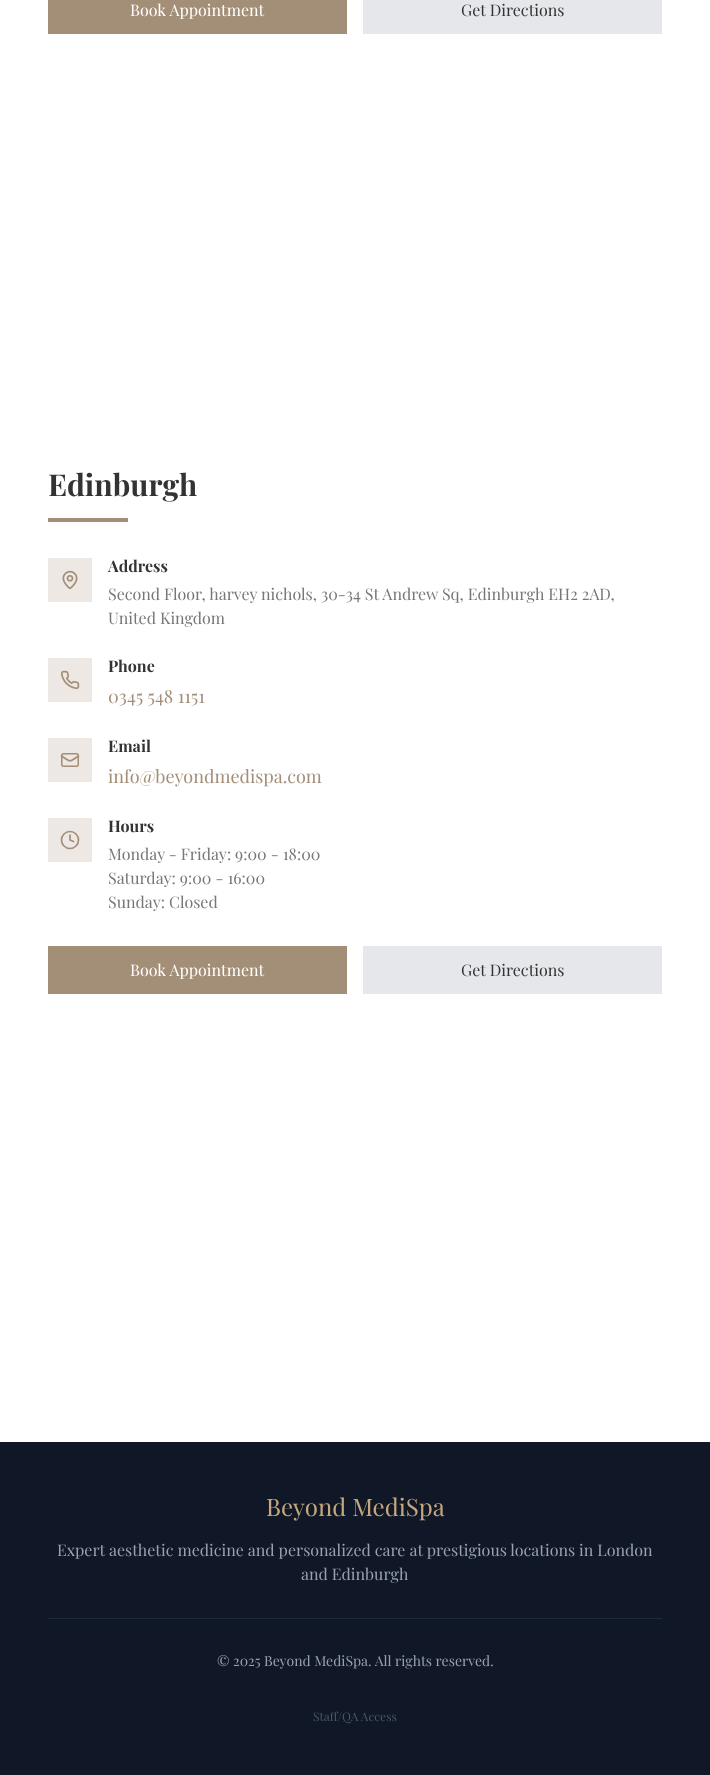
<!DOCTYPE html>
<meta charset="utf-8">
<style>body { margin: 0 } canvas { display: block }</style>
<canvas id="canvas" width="710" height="1775"></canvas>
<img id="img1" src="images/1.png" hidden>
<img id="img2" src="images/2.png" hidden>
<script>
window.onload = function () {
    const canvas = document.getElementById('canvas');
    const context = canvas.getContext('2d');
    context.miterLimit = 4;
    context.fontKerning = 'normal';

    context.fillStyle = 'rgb(255, 255, 255)';
    context.fillRect(0, 0, 710, 1775);
    context.fillStyle = 'rgb(163, 142, 120)';
    context.fillRect(48, 0, 299, 34);
    context.fillStyle = 'rgb(229, 231, 235)';
    context.fillRect(363, 0, 299, 34);
    context.fillStyle = 'rgb(163, 142, 120)';
    context.fillRect(48, 518, 80, 4);
    context.fillStyle = 'rgb(237, 232, 228)';
    context.fillRect(48, 558, 44, 44);
    context.drawImage(document.getElementById('img1'), 62, 570, 16, 20);
    context.fillRect(48, 658, 44, 44);
    context.drawImage(document.getElementById('img2'), 60, 670, 20, 20);
    context.fillRect(48, 738, 44, 44);
    context.beginPath();
    context.roundRect(61.75, 753.75, 16.5, 12.5, 1.75);
    context.strokeStyle = 'rgb(163, 142, 120)';
    context.lineWidth = 1.5;
    context.stroke();
    context.beginPath();
    context.moveTo(78.5, 756);
    context.bezierCurveTo(68, 762.5, 72, 762.5, 61.5, 756);
    context.lineWidth = 1.7;
    context.lineCap = 'round';
    context.lineJoin = 'round';
    context.stroke();
    context.fillRect(48, 818, 44, 44);
    context.beginPath();
    context.arc(70, 840, 8.5, 0, 2 * Math.PI);
    context.stroke();
    context.beginPath();
    context.moveTo(70, 835);
    context.lineTo(70, 840);
    context.lineTo(73.5, 841.5);
    context.stroke();
    context.fillStyle = 'rgb(163, 142, 120)';
    context.fillRect(48, 946, 299, 48);
    context.fillStyle = 'rgb(229, 231, 235)';
    context.fillRect(363, 946, 299, 48);
    context.fillStyle = 'rgb(16, 24, 40)';
    context.fillRect(0, 1442, 710, 333);
    context.fillStyle = 'rgb(30, 41, 57)';
    context.fillRect(48, 1618, 614, 1);
    context.font = '16px Playfair Display';
    context.fillStyle = 'rgb(255, 255, 255)';
    context.fillText('Book Appointment', 130, 16);
    context.fillStyle = 'rgb(51, 51, 51)';
    context.fillText('Get Directions', 461, 16);
    context.font = 'bold 30px Playfair Display';
    context.fillText('Edinburgh', 48, 496);
    context.font = 'bold 16px Playfair Display';
    context.fillText('Address', 108, 572);
    context.font = '16px Playfair Display';
    context.fillStyle = 'rgb(119, 119, 119)';
    context.fillText('Second Floor, harvey nichols, 30-34 St Andrew Sq, Edinburgh EH2 2AD,', 108, 600);
    context.fillText('United Kingdom', 108, 624);
    context.font = 'bold 16px Playfair Display';
    context.fillStyle = 'rgb(51, 51, 51)';
    context.fillText('Phone', 108, 672);
    context.font = '18px Playfair Display';
    context.fillStyle = 'rgb(163, 142, 120)';
    context.fillText('0345 548 1151', 108, 703);
    context.font = 'bold 16px Playfair Display';
    context.fillStyle = 'rgb(51, 51, 51)';
    context.fillText('Email', 108, 752);
    context.font = '18px Playfair Display';
    context.fillStyle = 'rgb(163, 142, 120)';
    context.fillText('info@beyondmedispa.com', 108, 783);
    context.font = 'bold 16px Playfair Display';
    context.fillStyle = 'rgb(51, 51, 51)';
    context.fillText('Hours', 108, 832);
    context.font = '16px Playfair Display';
    context.fillStyle = 'rgb(119, 119, 119)';
    context.fillText('Monday - Friday: 9:00 - 18:00', 108, 860);
    context.fillText('Saturday: 9:00 - 16:00', 108, 884);
    context.fillText('Sunday: Closed', 108, 908);
    context.fillStyle = 'rgb(255, 255, 255)';
    context.fillText('Book Appointment', 130, 976);
    context.fillStyle = 'rgb(51, 51, 51)';
    context.fillText('Get Directions', 461, 976);
    context.font = '24px Playfair Display';
    context.fillStyle = 'rgb(198, 167, 125)';
    context.fillText('Beyond MediSpa', 266, 1516);
    context.font = '16px Playfair Display';
    context.fillStyle = 'rgb(153, 161, 175)';
    context.fillText('Expert aesthetic medicine and personalized care at prestigious locations in London', 57, 1556);
    context.fillText('and Edinburgh', 301, 1580);
    context.font = '14px Playfair Display';
    context.fillText('© 2025 Beyond MediSpa. All rights reserved.', 217, 1666);
    context.font = '12px Playfair Display';
    context.fillStyle = 'rgb(74, 85, 101)';
    context.fillText('Staff/QA Access', 313, 1721);
};
</script>
